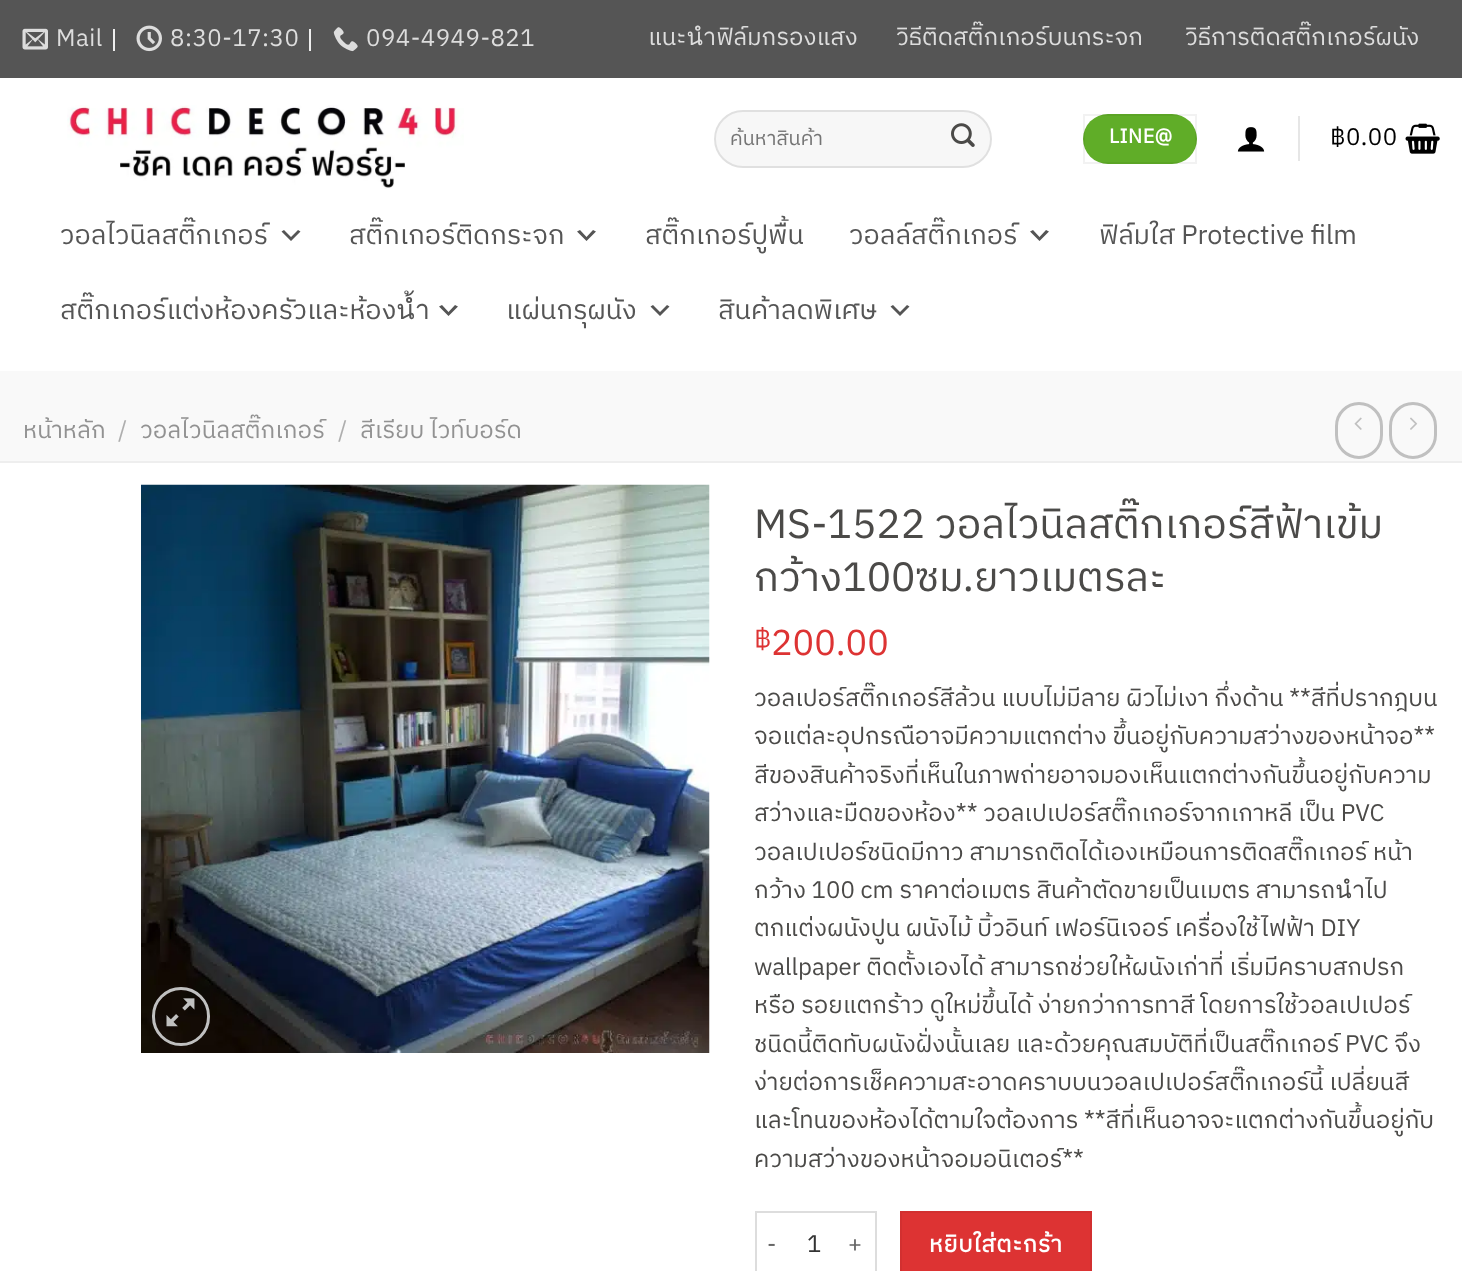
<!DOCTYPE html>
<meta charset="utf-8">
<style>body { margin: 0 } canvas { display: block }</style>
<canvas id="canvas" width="1462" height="1271"></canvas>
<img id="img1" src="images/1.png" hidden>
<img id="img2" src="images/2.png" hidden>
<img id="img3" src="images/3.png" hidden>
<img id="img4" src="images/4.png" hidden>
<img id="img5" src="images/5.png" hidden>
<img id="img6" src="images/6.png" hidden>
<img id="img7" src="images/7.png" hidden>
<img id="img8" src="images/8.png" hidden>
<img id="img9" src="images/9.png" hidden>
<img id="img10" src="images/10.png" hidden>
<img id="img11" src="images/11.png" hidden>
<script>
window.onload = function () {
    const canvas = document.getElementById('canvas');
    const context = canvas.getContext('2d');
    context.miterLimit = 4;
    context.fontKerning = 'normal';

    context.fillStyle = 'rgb(255, 255, 255)';
    context.fillRect(0, 0, 1462, 1271);
    context.fillStyle = 'rgb(85, 85, 85)';
    context.fillRect(0, 0, 1462, 78);
    context.drawImage(document.getElementById('img1'), 22, 28, 26, 22);
    context.fillStyle = 'rgb(238, 238, 238)';
    context.fillRect(113, 29, 2, 22);
    context.drawImage(document.getElementById('img2'), 136, 25, 26, 27);
    context.fillRect(309, 29, 2, 22);
    context.drawImage(document.getElementById('img3'), 333, 27, 25, 25);
    context.drawImage(document.getElementById('img4'), 67, 105, 397, 84);
    context.fillStyle = 'rgb(247, 247, 247)';
    context.beginPath();
    context.roundRect(714, 110, 278, 58, 29);
    context.fill();
    context.beginPath();
    context.roundRect(715, 111, 276, 56, 28);
    context.strokeStyle = 'rgba(0, 0, 0, 0.09)';
    context.lineWidth = 2;
    context.stroke();
    context.drawImage(document.getElementById('img5'), 951, 123, 24, 24);
    context.fillStyle = 'rgb(96, 173, 40)';
    context.beginPath();
    context.roundRect(1083, 114, 114, 50, 25);
    context.fill();
    context.strokeStyle = 'rgba(0, 0, 0, 0.05)';
    context.strokeRect(1084, 115, 112, 48);
    context.drawImage(document.getElementById('img6'), 1237, 127, 28, 25);
    context.fillStyle = 'rgb(230, 230, 230)';
    context.fillRect(1298, 116, 2, 45);
    context.drawImage(document.getElementById('img7'), 1405, 123, 35, 31);
    context.fillStyle = 'rgb(85, 85, 85)';
    context.beginPath();
    context.moveTo(284, 230);
    context.lineTo(291, 237);
    context.lineTo(298, 230);
    context.lineTo(300.5, 231.5);
    context.lineTo(291, 241);
    context.lineTo(281.5, 231.5);
    context.closePath();
    context.fill();
    context.beginPath();
    context.moveTo(580, 230);
    context.lineTo(586.5, 237);
    context.lineTo(593, 230);
    context.lineTo(596, 231.5);
    context.lineTo(586.5, 241);
    context.lineTo(577, 231.5);
    context.closePath();
    context.fill();
    context.beginPath();
    context.moveTo(1033, 230);
    context.lineTo(1039.5, 237);
    context.lineTo(1046, 230);
    context.lineTo(1049, 231.5);
    context.lineTo(1039.5, 241);
    context.lineTo(1030, 231.5);
    context.closePath();
    context.fill();
    context.beginPath();
    context.moveTo(442, 305);
    context.lineTo(448.5, 312);
    context.lineTo(455, 305);
    context.lineTo(458, 306.5);
    context.lineTo(448.5, 316);
    context.lineTo(439, 306.5);
    context.closePath();
    context.fill();
    context.beginPath();
    context.moveTo(653, 305);
    context.lineTo(660, 312);
    context.lineTo(667, 305);
    context.lineTo(669.5, 306.5);
    context.lineTo(660, 316);
    context.lineTo(650.5, 306.5);
    context.closePath();
    context.fill();
    context.beginPath();
    context.moveTo(893, 305);
    context.lineTo(900, 312);
    context.lineTo(907, 305);
    context.lineTo(909.5, 306.5);
    context.lineTo(900, 316);
    context.lineTo(890.5, 306.5);
    context.closePath();
    context.fill();
    context.fillStyle = 'rgb(249, 249, 249)';
    context.fillRect(0, 371, 1462, 90);
    context.beginPath();
    context.roundRect(1336.5, 403.5, 45, 54, 22.5);
    context.strokeStyle = 'rgb(192, 192, 192)';
    context.lineWidth = 3;
    context.stroke();
    context.drawImage(document.getElementById('img8'), 1354, 417, 8, 13);
    context.beginPath();
    context.roundRect(1390.5, 403.5, 45, 54, 22.5);
    context.stroke();
    context.drawImage(document.getElementById('img9'), 1410, 417, 8, 13);
    context.fillStyle = 'rgb(238, 238, 238)';
    context.fillRect(0, 461, 1462, 2);
    context.drawImage(document.getElementById('img10'), 141, 484, 569, 569);
    context.beginPath();
    context.roundRect(153.5, 988.5, 55, 56, 27.5);
    context.stroke();
    context.drawImage(document.getElementById('img11'), 166, 998, 29, 29);
    context.fillStyle = 'rgb(221, 221, 221)';
    context.fillRect(755, 1211, 121, 2);
    context.fillRect(755, 1211, 2, 60);
    context.fillRect(875, 1211, 2, 60);
    context.fillStyle = 'rgb(221, 51, 51)';
    context.beginPath();
    context.rect(901, 1212, 190, 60);
    context.fill();
    context.strokeStyle = 'rgb(210, 48, 48)';
    context.lineWidth = 2;
    context.stroke();
    context.letterSpacing = '0.5px';
    context.font = '24px "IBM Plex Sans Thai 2"';
    context.fillStyle = 'rgb(221, 221, 221)';
    context.fillText('Mail', 56, 46);
    context.fillText('8:30-17:30', 170, 46);
    context.fillText('094-4949-821', 366, 46);
    context.letterSpacing = '0px';
    context.fillText('แนะนำฟิล์มกรองแสง', 648, 45);
    context.fillText('วิธีติดสติ๊กเกอร์บนกระจก', 896, 45);
    context.fillText('วิธีการติดสติ๊กเกอร์ผนัง', 1185, 45);
    context.save();
    context.beginPath();
    context.rect(731, 122, 238, 33);
    context.clip();
    context.font = '20px IBM Plex Sans Thai';
    context.fillStyle = 'rgb(117, 117, 117)';
    context.fillText('ค้นหาสินค้า', 730, 145);
    context.restore();
    context.letterSpacing = '0.5px';
    context.font = 'bold 20px IBM Plex Sans Thai';
    context.fillStyle = 'rgb(255, 255, 255)';
    context.fillText('LINE@', 1109, 143);
    context.font = '24px "IBM Plex Sans Thai 2"';
    context.fillStyle = 'rgb(0, 0, 0)';
    context.fillText('฿0.00', 1330, 145);
    context.letterSpacing = '0px';
    context.font = '27px IBM Plex Sans Thai';
    context.fillStyle = 'rgb(85, 85, 85)';
    context.fillText('วอลไวนิลสติ๊กเกอร์', 60, 244);
    context.fillText('สติ๊กเกอร์ติดกระจก', 349, 244);
    context.fillText('สติ๊กเกอร์ปูพื้น', 645, 244);
    context.fillText('วอลล์สติ๊กเกอร์', 849, 244);
    context.fillText('ฟิล์มใส Protective film', 1099, 244);
    context.fillText('สติ๊กเกอร์แต่งห้องครัวและห้องน้ำ', 60, 319);
    context.fillText('แผ่นกรุผนัง', 506, 319);
    context.fillText('สินค้าลดพิเศษ', 718, 319);
    context.font = '24px IBM Plex Sans Thai';
    context.fillStyle = 'rgb(146, 146, 146)';
    context.fillText('หน้าหลัก', 23, 438);
    context.fillStyle = 'rgb(174, 174, 174)';
    context.fillText('/', 118, 438);
    context.fillStyle = 'rgb(146, 146, 146)';
    context.fillText('วอลไวนิลสติ๊กเกอร์', 140, 438);
    context.fillStyle = 'rgb(174, 174, 174)';
    context.fillText('/', 338, 438);
    context.fillStyle = 'rgb(146, 146, 146)';
    context.fillText('สีเรียบ ไวท์บอร์ด', 360, 438);
    context.font = '40.75px IBM Plex Sans Thai';
    context.fillStyle = 'rgb(75, 74, 72)';
    context.fillText('MS-1522 วอลไวนิลสติ๊กเกอร์สีฟ้าเข้ม', 754, 538);
    context.fillText('กว้าง100ซม.ยาวเมตรละ', 754, 591);
    context.font = '27px IBM Plex Sans Thai';
    context.fillStyle = 'rgb(221, 51, 51)';
    context.fillText('฿', 754, 648);
    context.font = '36px IBM Plex Sans Thai';
    context.fillText('200.00', 771, 655);
    context.font = '24px IBM Plex Sans Thai';
    context.fillStyle = 'rgb(75, 74, 72)';
    context.fillText('วอลเปอร์สติ๊กเกอร์สีล้วน แบบไม่มีลาย ผิวไม่เงา กึ่งด้าน **สีที่ปรากฎบน', 754, 706);
    context.fillText('จอแต่ละอุปกรณือาจมีความแตกต่าง ขึ้นอยู่กับความสว่างของหน้าจอ**', 754, 744);
    context.fillText('สีของสินค้าจริงที่เห็นในภาพถ่ายอาจมองเห็นแตกต่างกันขึ้นอยู่กับความ', 754, 783);
    context.fillText('สว่างและมืดของห้อง** วอลเปเปอร์สติ๊กเกอร์จากเกาหลี เป็น PVC', 754, 821);
    context.fillText('วอลเปเปอร์ชนิดมีกาว สามารถติดได้เองเหมือนการติดสติ๊กเกอร์ หน้า', 754, 860);
    context.fillText('กว้าง 100 cm ราคาต่อเมตร สินค้าตัดขายเป็นเมตร สามารถนำไป', 754, 898);
    context.fillText('ตกแต่งผนังปูน ผนังไม้ บิ้วอินท์ เฟอร์นิเจอร์ เครื่องใช้ไฟฟ้า DIY', 754, 936);
    context.fillText('wallpaper ติดตั้งเองได้ สามารถช่วยให้ผนังเก่าที่ เริ่มมีคราบสกปรก', 754, 975);
    context.fillText('หรือ รอยแตกร้าว ดูใหม่ขึ้นได้ ง่ายกว่าการทาสี โดยการใช้วอลเปเปอร์', 754, 1013);
    context.fillText('ชนิดนี้ติดทับผนังฝั่งนั้นเลย และด้วยคุณสมบัติที่เป็นสติ๊กเกอร์ PVC จึง', 754, 1052);
    context.fillText('ง่ายต่อการเช็คความสะอาดคราบบนวอลเปเปอร์สติ๊กเกอร์นี้ เปลี่ยนสี', 754, 1090);
    context.fillText('และโทนของห้องได้ตามใจต้องการ **สีที่เห็นอาจจะแตกต่างกันขึ้นอยู่กับ', 754, 1128);
    context.fillText('ความสว่างของหน้าจอมอนิเตอร์**', 754, 1167);
    context.letterSpacing = '0.75px';
    context.font = '23.25px IBM Plex Sans Thai';
    context.fillStyle = 'rgb(102, 102, 102)';
    context.fillText('-', 767, 1252);
    context.letterSpacing = '0px';
    context.font = '24px IBM Plex Sans Thai';
    context.fillStyle = 'rgb(51, 51, 51)';
    context.fillText('1', 807, 1252);
    context.letterSpacing = '0.75px';
    context.font = '23.25px IBM Plex Sans Thai';
    context.fillStyle = 'rgb(102, 102, 102)';
    context.fillText('+', 848, 1252);
    context.font = 'bold 23.25px IBM Plex Sans Thai';
    context.fillStyle = 'rgb(255, 255, 255)';
    context.fillText('หยิบใส่ตะกร้า', 929, 1252);
};
</script>
